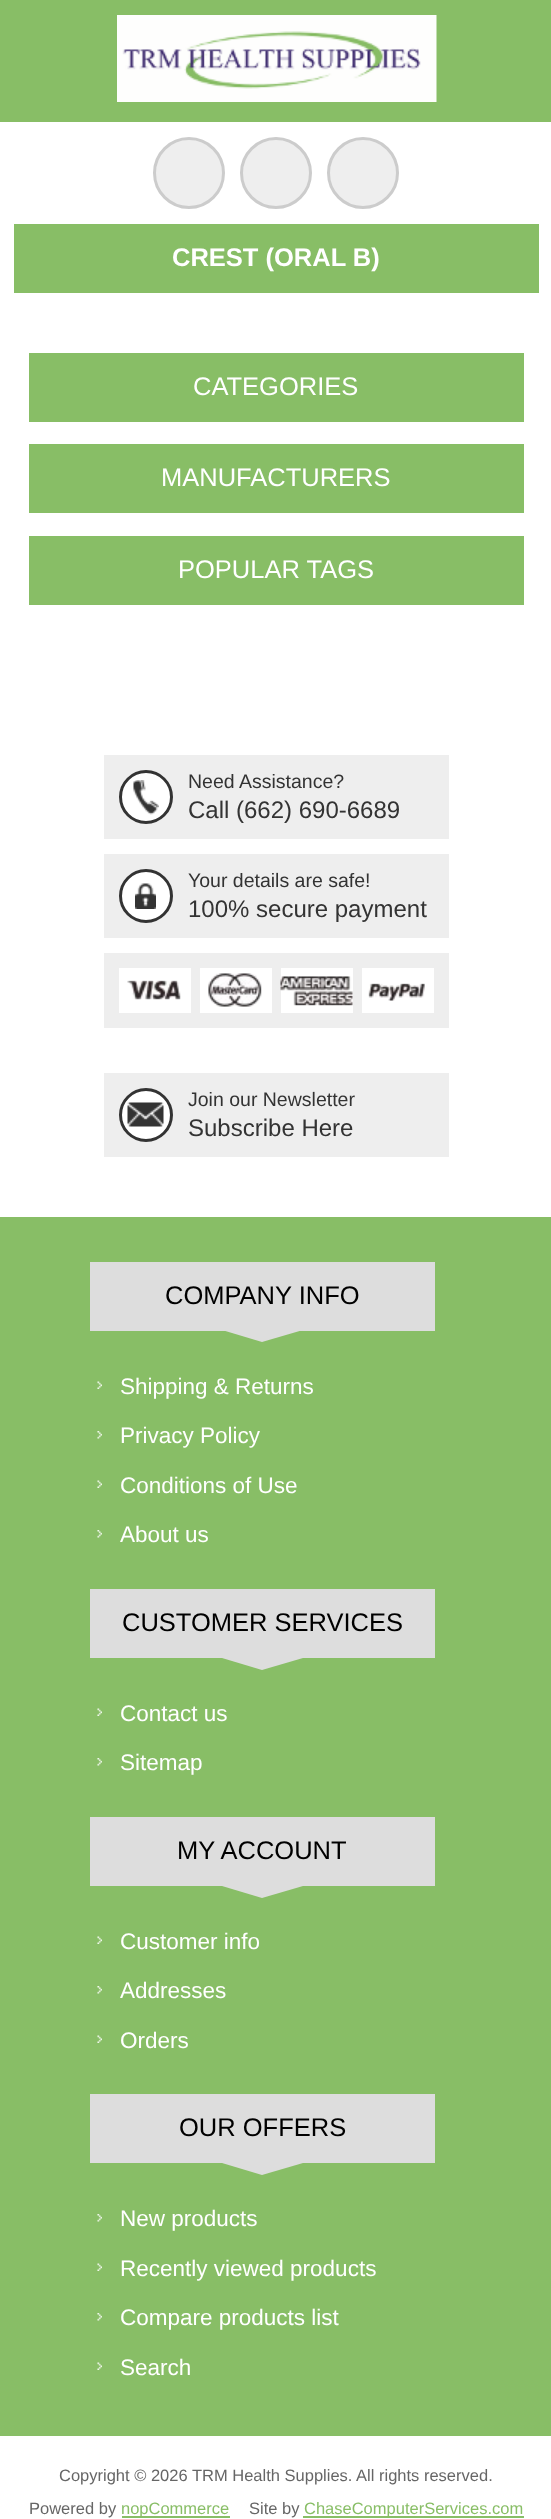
<!DOCTYPE html>
<meta charset="utf-8">
<style>body { margin: 0 } canvas { display: block }</style>
<canvas id="canvas" width="551" height="2519"></canvas>
<img id="img1" src="images/1.png" hidden>
<img id="img2" src="images/2.png" hidden>
<img id="img3" src="images/3.png" hidden>
<img id="img4" src="images/4.png" hidden>
<img id="img5" src="images/5.png" hidden>
<img id="img6" src="images/6.png" hidden>
<img id="img7" src="images/7.png" hidden>
<img id="img8" src="images/8.png" hidden>
<img id="img9" src="images/9.png" hidden>
<img id="img10" src="images/10.png" hidden>
<script>
window.onload = function () {
    const canvas = document.getElementById('canvas');
    const context = canvas.getContext('2d');
    context.miterLimit = 4;
    context.fontKerning = 'normal';

    context.fillStyle = 'rgb(255, 255, 255)';
    context.fillRect(0, 0, 551, 2519);
    context.fillStyle = 'rgb(136, 190, 102)';
    context.fillRect(0, 0, 551, 122);
    context.drawImage(document.getElementById('img1'), 117, 15, 320, 87);
    context.fillStyle = 'rgb(238, 238, 238)';
    context.beginPath();
    context.arc(189, 173, 34.5, 0, 2 * Math.PI);
    context.fill();
    context.strokeStyle = 'rgb(204, 204, 204)';
    context.lineWidth = 3;
    context.stroke();
    context.beginPath();
    context.arc(276, 173, 34.5, 0, 2 * Math.PI);
    context.fill();
    context.stroke();
    context.beginPath();
    context.arc(363, 173, 34.5, 0, 2 * Math.PI);
    context.fill();
    context.stroke();
    context.fillStyle = 'rgb(136, 190, 102)';
    context.fillRect(14, 224, 525, 69);
    context.fillRect(29, 353, 495, 69);
    context.fillRect(29, 444, 495, 69);
    context.fillRect(29, 536, 495, 69);
    context.fillStyle = 'rgb(238, 238, 238)';
    context.fillRect(104, 755, 345, 84);
    context.fillStyle = 'rgb(255, 255, 255)';
    context.beginPath();
    context.arc(146, 797, 27, 0, 2 * Math.PI);
    context.fill();
    context.drawImage(document.getElementById('img2'), 133, 780, 26, 35);
    context.beginPath();
    context.arc(146, 797, 25.5, 0, 2 * Math.PI);
    context.strokeStyle = 'rgb(51, 51, 51)';
    context.stroke();
    context.fillStyle = 'rgb(238, 238, 238)';
    context.fillRect(104, 854, 345, 84);
    context.fillStyle = 'rgb(255, 255, 255)';
    context.beginPath();
    context.arc(146, 896, 27, 0, 2 * Math.PI);
    context.fill();
    context.drawImage(document.getElementById('img3'), 135, 883, 21, 26);
    context.beginPath();
    context.arc(146, 896, 25.5, 0, 2 * Math.PI);
    context.stroke();
    context.fillStyle = 'rgb(238, 238, 238)';
    context.fillRect(104, 953, 345, 75);
    context.fillStyle = 'rgb(255, 255, 255)';
    context.fillRect(119, 968, 72, 45);
    context.drawImage(document.getElementById('img4'), 127, 980, 54, 20);
    context.fillRect(200, 968, 72, 45);
    context.drawImage(document.getElementById('img5'), 208, 973, 54, 34);
    context.fillRect(281, 968, 72, 45);
    context.drawImage(document.getElementById('img6'), 280, 976, 73, 30);
    context.fillRect(362, 968, 72, 45);
    context.drawImage(document.getElementById('img7'), 368, 983, 57, 18);
    context.fillStyle = 'rgb(238, 238, 238)';
    context.fillRect(104, 1073, 345, 84);
    context.fillStyle = 'rgb(255, 255, 255)';
    context.beginPath();
    context.arc(146, 1115, 27, 0, 2 * Math.PI);
    context.fill();
    context.drawImage(document.getElementById('img8'), 127, 1102, 37, 25);
    context.beginPath();
    context.arc(146, 1115, 25.5, 0, 2 * Math.PI);
    context.stroke();
    context.fillStyle = 'rgb(136, 190, 102)';
    context.fillRect(0, 1217, 551, 1219);
    context.fillStyle = 'rgb(221, 221, 221)';
    context.fillRect(90, 1262, 345, 69);
    context.beginPath();
    context.moveTo(222, 1330);
    context.lineTo(303, 1330);
    context.lineTo(262, 1342);
    context.closePath();
    context.fill();
    context.drawImage(document.getElementById('img9'), 97, 1381, 5, 8);
    context.drawImage(document.getElementById('img10'), 97, 1431, 5, 8);
    context.drawImage(document.getElementById('img9'), 97, 1480, 5, 8);
    context.drawImage(document.getElementById('img10'), 97, 1530, 5, 8);
    context.fillRect(90, 1589, 345, 69);
    context.beginPath();
    context.moveTo(222, 1658);
    context.lineTo(303, 1658);
    context.lineTo(262, 1670);
    context.closePath();
    context.fill();
    context.drawImage(document.getElementById('img9'), 97, 1708, 5, 8);
    context.drawImage(document.getElementById('img10'), 97, 1758, 5, 8);
    context.fillRect(90, 1817, 345, 69);
    context.beginPath();
    context.moveTo(222, 1886);
    context.lineTo(303, 1886);
    context.lineTo(262, 1898);
    context.closePath();
    context.fill();
    context.drawImage(document.getElementById('img9'), 97, 1936, 5, 8);
    context.drawImage(document.getElementById('img10'), 97, 1986, 5, 8);
    context.drawImage(document.getElementById('img9'), 97, 2035, 5, 8);
    context.fillRect(90, 2094, 345, 69);
    context.beginPath();
    context.moveTo(222, 2163);
    context.lineTo(303, 2163);
    context.lineTo(262, 2175);
    context.closePath();
    context.fill();
    context.drawImage(document.getElementById('img10'), 97, 2214, 5, 8);
    context.drawImage(document.getElementById('img9'), 97, 2263, 5, 8);
    context.drawImage(document.getElementById('img10'), 97, 2313, 5, 8);
    context.drawImage(document.getElementById('img9'), 97, 2362, 5, 8);
    context.fillStyle = 'rgb(136, 190, 102)';
    context.fillRect(122, 2516, 108, 2);
    context.fillRect(303, 2516, 221, 2);
    context.font = 'bold 25.5px Liberation Sans';
    context.fillStyle = 'rgb(255, 255, 255)';
    context.fillText('CREST (ORAL B)', 172, 266);
    context.font = '25.5px Liberation Sans';
    context.fillText('CATEGORIES', 193, 395);
    context.fillText('MANUFACTURERS', 161, 486);
    context.fillText('POPULAR TAGS', 178, 578);
    context.font = '19.5px Liberation Sans';
    context.fillStyle = 'rgb(51, 51, 51)';
    context.fillText('Need Assistance?', 188, 788);
    context.font = '24px Liberation Sans';
    context.fillText('Call (662) 690-6689', 188, 818);
    context.font = '19.5px Liberation Sans';
    context.fillText('Your details are safe!', 188, 887);
    context.font = '24px Liberation Sans';
    context.fillText('100% secure payment', 188, 917);
    context.font = '19.5px Liberation Sans';
    context.fillText('Join our Newsletter', 188, 1106);
    context.font = '24px Liberation Sans';
    context.fillText('Subscribe Here', 188, 1136);
    context.font = '25.5px Liberation Sans';
    context.fillStyle = 'rgb(0, 0, 0)';
    context.fillText('COMPANY INFO', 165, 1304);
    context.font = '22.5px Liberation Sans';
    context.fillStyle = 'rgb(255, 255, 255)';
    context.fillText('Shipping & Returns', 120, 1394);
    context.fillText('Privacy Policy', 120, 1443);
    context.fillText('Conditions of Use', 120, 1493);
    context.fillText('About us', 120, 1542);
    context.font = '25.5px Liberation Sans';
    context.fillStyle = 'rgb(0, 0, 0)';
    context.fillText('CUSTOMER SERVICES', 122, 1631);
    context.font = '22.5px Liberation Sans';
    context.fillStyle = 'rgb(255, 255, 255)';
    context.fillText('Contact us', 120, 1721);
    context.fillText('Sitemap', 120, 1770);
    context.font = '25.5px Liberation Sans';
    context.fillStyle = 'rgb(0, 0, 0)';
    context.fillText('MY ACCOUNT', 177, 1859);
    context.font = '22.5px Liberation Sans';
    context.fillStyle = 'rgb(255, 255, 255)';
    context.fillText('Customer info', 120, 1949);
    context.fillText('Addresses', 120, 1998);
    context.fillText('Orders', 120, 2048);
    context.font = '25.5px Liberation Sans';
    context.fillStyle = 'rgb(0, 0, 0)';
    context.fillText('OUR OFFERS', 179, 2136);
    context.font = '22.5px Liberation Sans';
    context.fillStyle = 'rgb(255, 255, 255)';
    context.fillText('New products', 120, 2226);
    context.fillText('Recently viewed products', 120, 2276);
    context.fillText('Compare products list', 120, 2325);
    context.fillText('Search', 120, 2375);
    context.font = '16.5px Liberation Sans';
    context.fillStyle = 'rgb(102, 102, 102)';
    context.fillText('Copyright © 2026 TRM Health Supplies. All rights reserved.', 59, 2481);
    context.fillText('Powered by', 29, 2514);
    context.fillStyle = 'rgb(136, 190, 102)';
    context.fillText('nopCommerce', 121, 2514);
    context.fillStyle = 'rgb(102, 102, 102)';
    context.fillText('Site by', 249, 2514);
    context.fillStyle = 'rgb(136, 190, 102)';
    context.fillText('ChaseComputerServices.com', 304, 2514);
};
</script>
